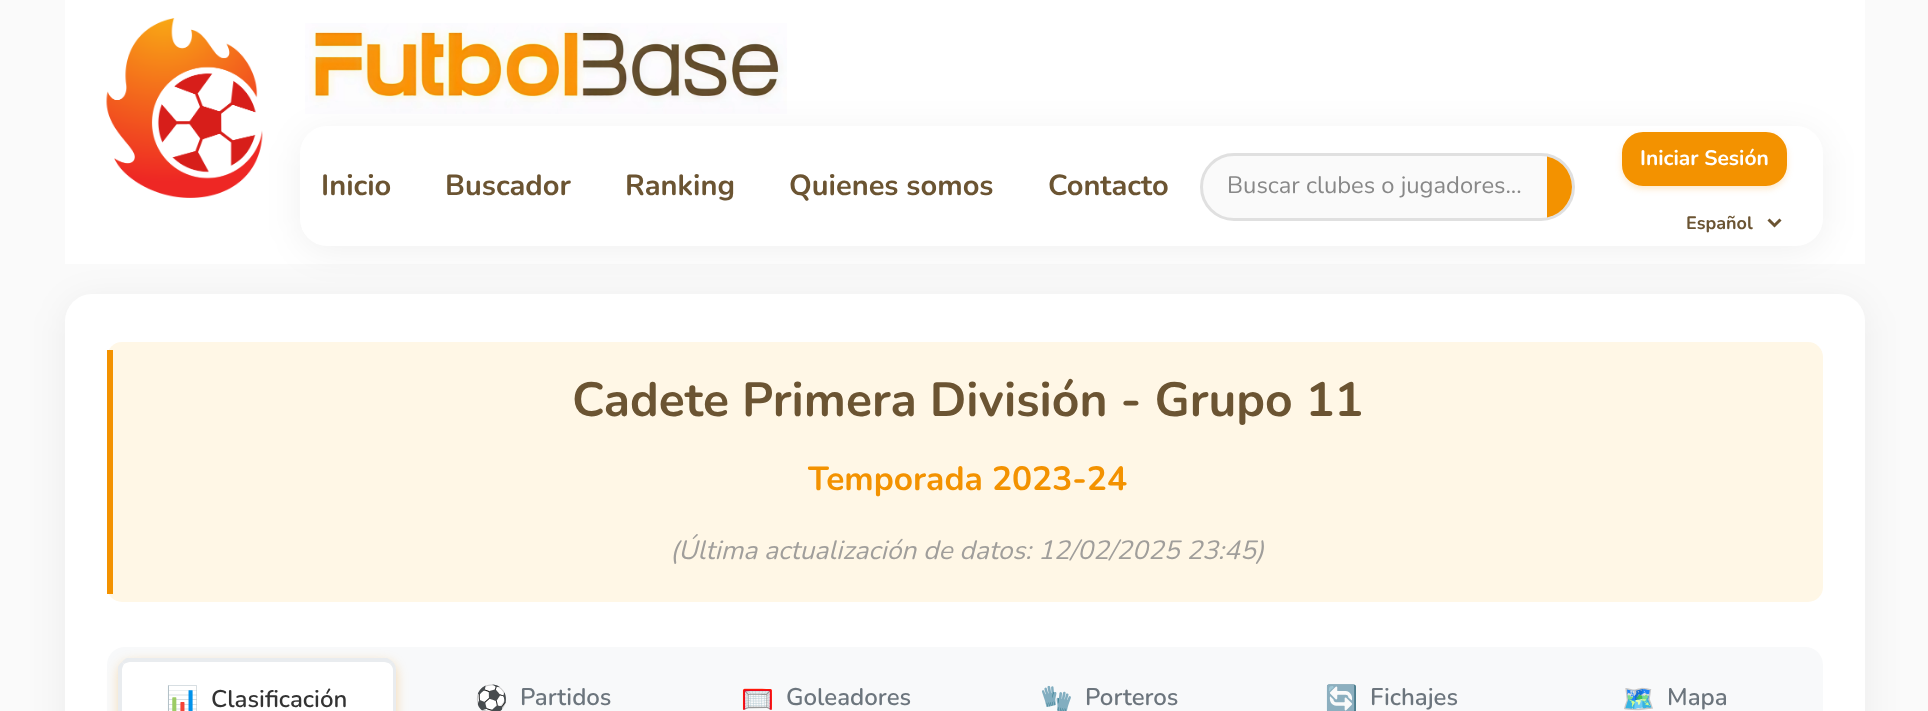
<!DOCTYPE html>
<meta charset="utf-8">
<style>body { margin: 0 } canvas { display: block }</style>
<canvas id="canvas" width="1928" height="711"></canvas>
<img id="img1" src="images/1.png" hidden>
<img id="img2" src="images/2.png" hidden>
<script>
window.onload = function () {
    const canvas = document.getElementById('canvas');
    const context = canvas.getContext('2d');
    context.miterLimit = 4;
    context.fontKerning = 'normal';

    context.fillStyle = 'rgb(250, 250, 250)';
    context.fillRect(0, 0, 1928, 711);
    context.fillStyle = 'rgb(255, 255, 255)';
    context.fillRect(65, 0, 1800, 264);
    context.drawImage(document.getElementById('img1'), 106, 18, 157, 180);
    context.drawImage(document.getElementById('img2'), 305, 23, 482, 91);
    context.fillStyle = 'rgba(0, 0, 0, 0.06)';
    context.filter = 'blur(18px)';
    context.beginPath();
    context.roundRect(65, 300, 1800, 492, 27);
    context.fill();
    context.filter = 'none';
    context.fillStyle = 'rgb(255, 255, 255)';
    context.beginPath();
    context.roundRect(65, 294, 1800, 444, 27);
    context.fill();
    context.fillStyle = 'rgba(0, 0, 0, 0.06)';
    context.filter = 'blur(18px)';
    context.beginPath();
    context.roundRect(300, 132, 1523, 120, 27);
    context.fill();
    context.filter = 'none';
    context.fillStyle = 'rgb(255, 255, 255)';
    context.beginPath();
    context.roundRect(300, 126, 1523, 120, 27);
    context.fill();
    context.fillStyle = 'rgb(250, 250, 250)';
    context.beginPath();
    context.roundRect(1201.5, 154.5, 372, 65, 32.5);
    context.fill();
    context.strokeStyle = 'rgb(224, 224, 224)';
    context.lineWidth = 3;
    context.stroke();
    context.save();
    context.beginPath();
    context.roundRect(1203, 156, 369, 62, 31);
    context.clip();
    context.fillStyle = 'rgb(243, 146, 0)';
    context.fillRect(1547, 156, 25, 62);
    context.restore();
    context.fillStyle = 'rgba(243, 146, 0, 0.2)';
    context.filter = 'blur(3px)';
    context.beginPath();
    context.roundRect(1622, 135, 165, 54, 21);
    context.fill();
    context.filter = 'none';
    context.fillStyle = 'rgb(243, 146, 0)';
    context.beginPath();
    context.roundRect(1623.5, 133.5, 162, 51, 19.5);
    context.fill();
    context.strokeStyle = 'rgb(243, 146, 0)';
    context.stroke();
    context.beginPath();
    context.moveTo(1768.5, 219.5);
    context.lineTo(1774.5, 225.5);
    context.lineTo(1780.5, 219.5);
    context.strokeStyle = 'rgb(107, 84, 50)';
    context.stroke();
    context.fillStyle = 'rgb(255, 247, 230)';
    context.beginPath();
    context.roundRect(107, 342, 1716, 260, 15);
    context.fill();
    context.fillStyle = 'rgb(243, 146, 0)';
    context.fillRect(107, 350, 6, 244);
    context.fillStyle = 'rgb(248, 249, 250)';
    context.beginPath();
    context.roundRect(107, 647, 1716, 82, 18);
    context.fill();
    context.fillStyle = 'rgba(243, 146, 0, 0.3)';
    context.filter = 'blur(6px)';
    context.beginPath();
    context.roundRect(119, 662, 277, 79, 12);
    context.fill();
    context.filter = 'none';
    context.fillStyle = 'rgb(255, 255, 255)';
    context.beginPath();
    context.moveTo(131, 659);
    context.lineTo(384, 659);
    context.bezierCurveTo(390.5, 659, 396, 664.5, 396, 671);
    context.lineTo(396, 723);
    context.lineTo(119, 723);
    context.lineTo(119, 671);
    context.bezierCurveTo(119, 664.5, 124.5, 659, 131, 659);
    context.closePath();
    context.fill();
    context.fillStyle = 'rgb(233, 236, 239)';
    context.beginPath();
    context.moveTo(130, 662);
    context.bezierCurveTo(128, 662, 126, 663, 124, 664);
    context.lineTo(122, 662);
    context.bezierCurveTo(123, 660, 125, 659, 127, 658);
    context.lineTo(387, 658);
    context.bezierCurveTo(389, 659, 391, 660, 393, 662);
    context.lineTo(390, 664);
    context.bezierCurveTo(389, 663, 386, 662, 384, 662);
    context.closePath();
    context.fill();
    context.beginPath();
    context.moveTo(396, 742);
    context.lineTo(396, 670);
    context.bezierCurveTo(396, 667, 395, 664, 393, 662);
    context.lineTo(390, 664);
    context.bezierCurveTo(392, 666, 393, 668, 393, 670);
    context.lineTo(393, 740);
    context.closePath();
    context.fill();
    context.beginPath();
    context.moveTo(118, 667);
    context.bezierCurveTo(119, 665, 120, 663, 122, 662);
    context.lineTo(124, 664);
    context.bezierCurveTo(123, 666, 122, 668, 122, 670);
    context.lineTo(122, 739);
    context.lineTo(118, 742);
    context.closePath();
    context.fill();
    context.font = 'bold 29px Nunito';
    context.fillStyle = 'rgb(107, 84, 50)';
    context.fillText('Inicio', 321, 195);
    context.fillText('Buscador', 445, 195);
    context.fillText('Ranking', 625, 195);
    context.fillText('Quienes somos', 789, 195);
    context.fillText('Contacto', 1048, 195);
    context.font = '23.75px Nunito';
    context.fillStyle = 'rgb(136, 136, 136)';
    context.fillText('Buscar clubes o jugadores...', 1227, 193);
    context.font = 'bold 21px Nunito';
    context.fillStyle = 'rgb(255, 255, 255)';
    context.fillText('Iniciar Sesión', 1640, 165);
    context.font = 'bold 18px Nunito';
    context.fillStyle = 'rgb(107, 84, 50)';
    context.fillText('Español', 1686, 229);
    context.font = 'bold 48px Nunito';
    context.fillText('Cadete Primera División - Grupo 11', 572, 416);
    context.font = 'bold 33.5px Nunito';
    context.fillStyle = 'rgb(243, 146, 0)';
    context.fillText('Temporada 2023-24', 808, 490);
    context.font = 'italic 26.4px Nunito';
    context.fillStyle = 'rgb(160, 158, 155)';
    context.fillText('(Última actualización de datos: 12/02/2025 23:45)', 670, 559);
    context.font = 'bold 26.4px Noto Color Emoji';
    context.fillStyle = 'rgb(51, 51, 51)';
    context.fillText('📊', 166, 709);
    context.font = '600 24px Nunito';
    context.fillText('Clasificación', 211, 707);
    context.font = 'bold 26.4px Noto Color Emoji';
    context.fillStyle = 'rgb(108, 117, 125)';
    context.fillText('⚽', 475, 708);
    context.font = '600 24px Nunito';
    context.fillText('Partidos', 520, 705);
    context.font = 'bold 26.4px Noto Color Emoji';
    context.fillText('🥅', 741, 708);
    context.font = '600 24px Nunito';
    context.fillText('Goleadores', 786, 705);
    context.font = 'bold 26.4px Noto Color Emoji';
    context.fillText('🧤', 1040, 708);
    context.font = '600 24px Nunito';
    context.fillText('Porteros', 1085, 705);
    context.font = 'bold 26.4px Noto Color Emoji';
    context.fillText('🔄', 1325, 708);
    context.font = '600 24px Nunito';
    context.fillText('Fichajes', 1370, 705);
    context.font = 'bold 26.4px Noto Color Emoji';
    context.fillText('🗺️', 1622, 708);
    context.font = '600 24px Nunito';
    context.fillText('Mapa', 1667, 705);
};
</script>
